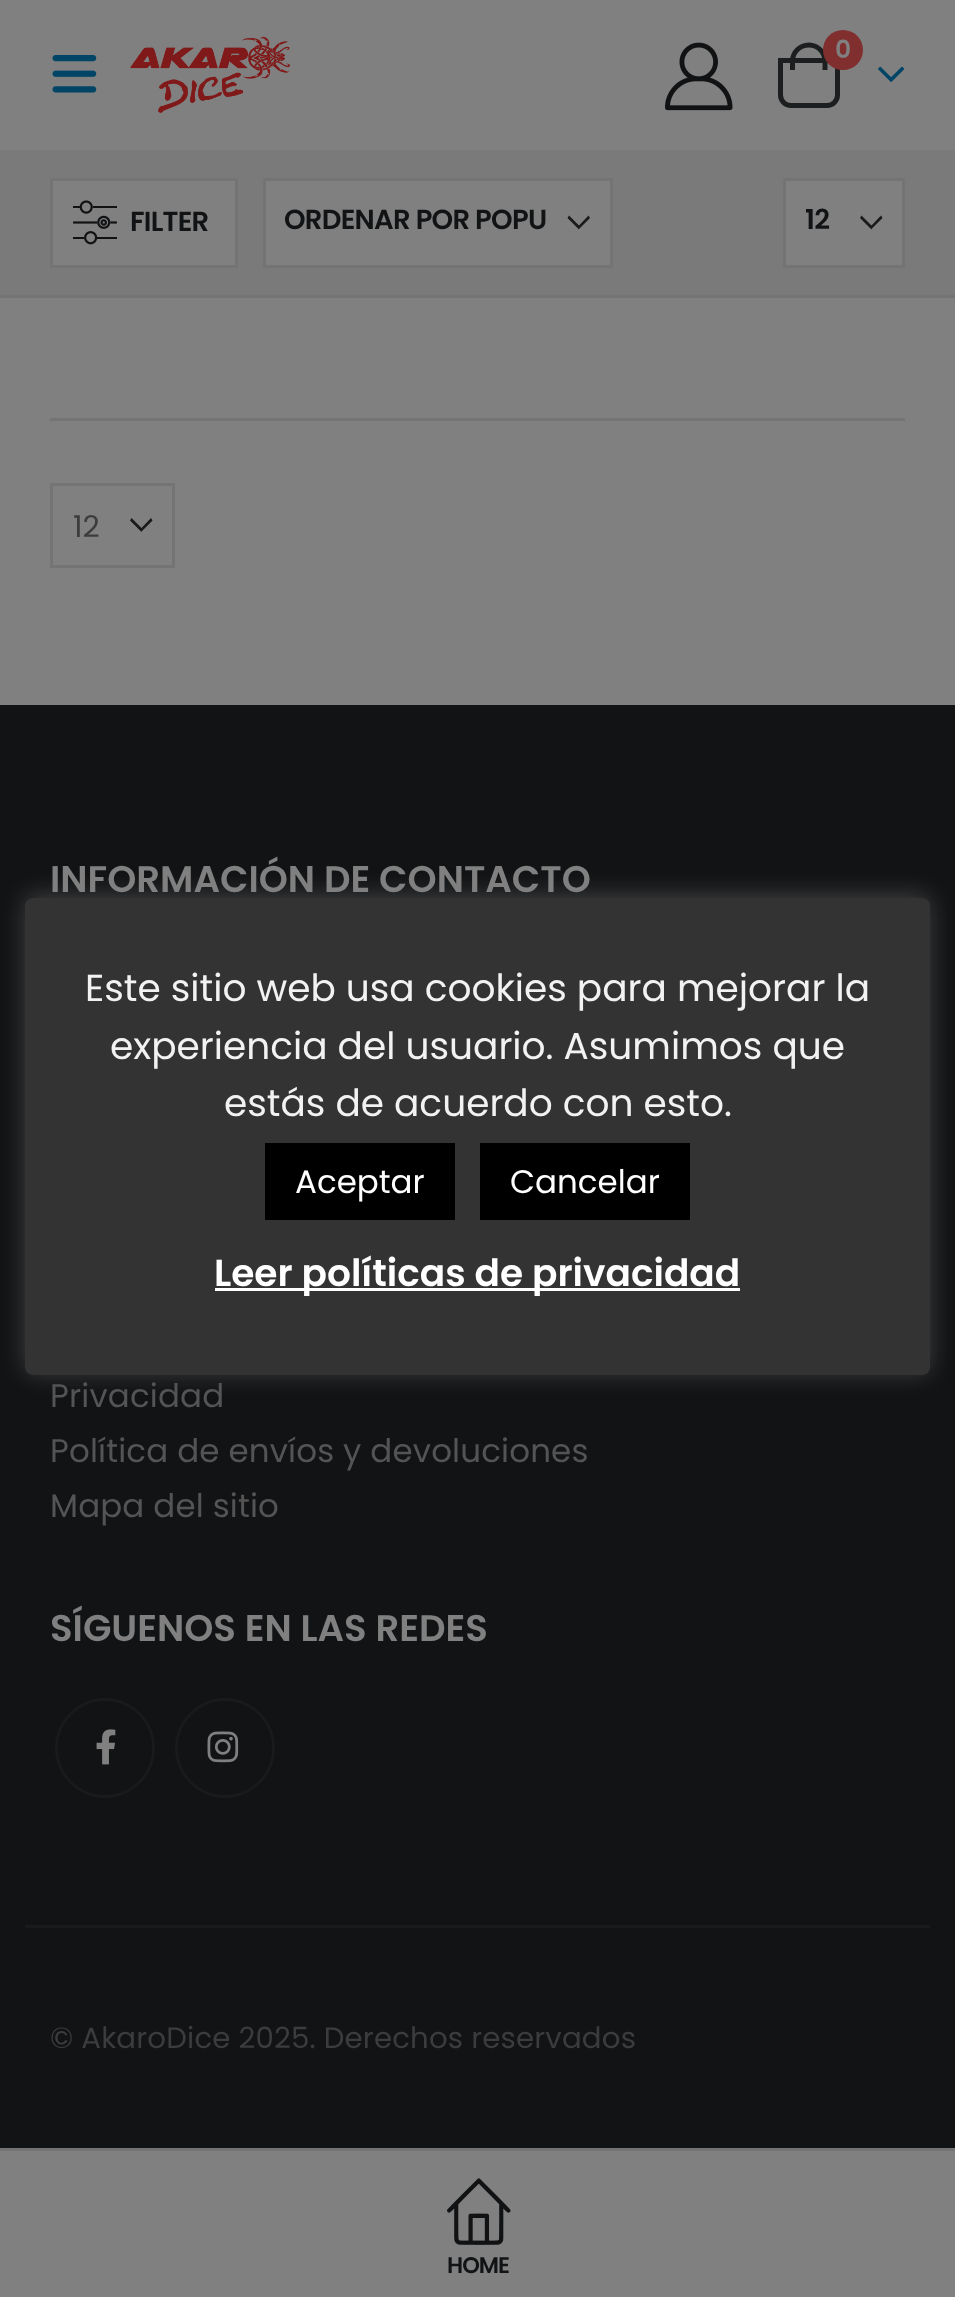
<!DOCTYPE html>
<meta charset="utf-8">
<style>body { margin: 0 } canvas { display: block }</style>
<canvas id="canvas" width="955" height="2297"></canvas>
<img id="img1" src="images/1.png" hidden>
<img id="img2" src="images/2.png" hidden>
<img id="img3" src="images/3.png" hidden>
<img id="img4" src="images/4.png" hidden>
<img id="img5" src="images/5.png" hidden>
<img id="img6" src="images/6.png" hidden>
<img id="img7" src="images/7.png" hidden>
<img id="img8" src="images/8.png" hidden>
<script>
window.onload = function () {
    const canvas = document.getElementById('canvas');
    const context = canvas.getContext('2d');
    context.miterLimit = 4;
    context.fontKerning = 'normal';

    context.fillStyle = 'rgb(128, 128, 128)';
    context.fillRect(0, 0, 955, 2297);
    context.drawImage(document.getElementById('img1'), 52, 55, 45, 38);
    context.drawImage(document.getElementById('img2'), 130, 36, 160, 77);
    context.drawImage(document.getElementById('img3'), 665, 42, 68, 69);
    context.beginPath();
    context.roundRect(780.5, 60.5, 57, 45, [0, 0, 10.5, 10.5]);
    context.strokeStyle = 'rgb(28, 30, 31)';
    context.lineWidth = 5;
    context.stroke();
    context.fillStyle = 'rgb(28, 30, 31)';
    context.beginPath();
    context.moveTo(809, 42.5);
    context.bezierCurveTo(819, 42.5, 827.5, 51, 827.5, 61);
    context.lineTo(827.5, 70);
    context.lineTo(790, 70);
    context.lineTo(790, 61);
    context.bezierCurveTo(790, 51, 798.5, 42.5, 809, 42.5);
    context.closePath();
    context.moveTo(809, 47.5);
    context.bezierCurveTo(816.5, 47.5, 822.5, 53.5, 822.5, 61);
    context.lineTo(822.5, 70);
    context.lineTo(795, 70);
    context.lineTo(795, 61);
    context.bezierCurveTo(795, 53.5, 801, 47.5, 809, 47.5);
    context.closePath();
    context.fill('evenodd');
    context.fillStyle = 'rgb(128, 46, 46)';
    context.beginPath();
    context.arc(843, 50, 20, 0, 2 * Math.PI);
    context.fill();
    context.drawImage(document.getElementById('img4'), 878, 66, 27, 16);
    context.fillStyle = 'rgb(122, 122, 122)';
    context.fillRect(0, 150, 955, 145);
    context.fillStyle = 'rgb(116, 116, 116)';
    context.fillRect(0, 295, 955, 3);
    context.fillStyle = 'rgb(128, 128, 128)';
    context.beginPath();
    context.rect(51.5, 179.5, 185, 87);
    context.fill();
    context.strokeStyle = 'rgb(116, 116, 116)';
    context.lineWidth = 3;
    context.stroke();
    context.drawImage(document.getElementById('img5'), 73, 200, 44, 45);
    context.fillRect(266, 181, 344, 84);
    context.fillStyle = 'rgb(26, 26, 26)';
    context.beginPath();
    context.moveTo(579, 229);
    context.lineTo(590, 218);
    context.lineTo(588.5, 215.5);
    context.lineTo(579, 225.5);
    context.lineTo(569, 215.5);
    context.lineTo(567.5, 218);
    context.lineTo(579, 229.5);
    context.closePath();
    context.fill('evenodd');
    context.strokeRect(264.5, 179.5, 347, 87);
    context.fillStyle = 'rgb(128, 128, 128)';
    context.fillRect(786, 181, 116, 84);
    context.fillStyle = 'rgb(26, 26, 26)';
    context.beginPath();
    context.moveTo(871.5, 229);
    context.lineTo(882.5, 218);
    context.lineTo(881, 215.5);
    context.lineTo(871.5, 225.5);
    context.lineTo(861.5, 215.5);
    context.lineTo(860, 218);
    context.lineTo(871.5, 229.5);
    context.closePath();
    context.fill('evenodd');
    context.strokeRect(784.5, 179.5, 119, 87);
    context.fillStyle = 'rgb(116, 116, 116)';
    context.fillRect(50, 418, 855, 3);
    context.fillStyle = 'rgb(26, 26, 26)';
    context.beginPath();
    context.moveTo(141.5, 531.5);
    context.lineTo(152.5, 520.5);
    context.lineTo(151, 518);
    context.lineTo(141.5, 528);
    context.lineTo(131.5, 518);
    context.lineTo(130, 520.5);
    context.lineTo(141.5, 532);
    context.closePath();
    context.fill('evenodd');
    context.strokeRect(51.5, 484.5, 122, 82);
    context.fillStyle = 'rgb(17, 19, 21)';
    context.fillRect(0, 705, 955, 1443);
    context.beginPath();
    context.arc(105, 1748, 48.5, 0, 2 * Math.PI);
    context.strokeStyle = 'rgb(25, 26, 28)';
    context.stroke();
    context.drawImage(document.getElementById('img6'), 96, 1729, 20, 36);
    context.beginPath();
    context.arc(225, 1748, 48.5, 0, 2 * Math.PI);
    context.stroke();
    context.drawImage(document.getElementById('img7'), 207, 1731, 32, 32);
    context.fillStyle = 'rgb(25, 26, 28)';
    context.fillRect(25, 1925, 905, 3);
    context.fillStyle = 'rgb(116, 116, 116)';
    context.fillRect(0, 2148, 955, 3);
    context.drawImage(document.getElementById('img8'), 447, 2178, 64, 67);
    context.fillStyle = 'rgba(172, 171, 171, 0.3)';
    context.filter = 'blur(12.5px)';
    context.beginPath();
    context.roundRect(25, 895, 905, 478, 8);
    context.fill();
    context.filter = 'none';
    context.fillStyle = 'rgb(51, 51, 51)';
    context.beginPath();
    context.roundRect(25, 898, 905, 477, 8);
    context.fill();
    context.fillStyle = 'rgb(0, 0, 0)';
    context.fillRect(265, 1143, 190, 77);
    context.fillRect(480, 1143, 210, 77);
    context.fillStyle = 'rgb(255, 255, 255)';
    context.fillRect(215, 1288, 525, 3);
    context.font = '600 25px Poppins';
    context.fillStyle = 'rgb(128, 128, 128)';
    context.fillText('0', 835, 58);
    context.letterSpacing = '-0.75px';
    context.font = '600 27.5px Poppins';
    context.fillStyle = 'rgb(17, 19, 21)';
    context.fillText('FILTER', 130, 231);
    context.fillText('ORDENAR POR POPU', 284, 229);
    context.fillText('12', 805, 229);
    context.letterSpacing = '0px';
    context.font = '30px Poppins';
    context.fillStyle = 'rgb(60, 60, 60)';
    context.fillText('12', 73, 537);
    context.font = '600 37.1px Poppins';
    context.fillStyle = 'rgb(128, 128, 128)';
    context.fillText('INFORMACIÓN DE CONTACTO', 50, 892);
    context.letterSpacing = '0.15px';
    context.font = '32.5px Poppins';
    context.fillStyle = 'rgb(84, 84, 84)';
    context.fillText('Privacidad', 50, 1407);
    context.fillText('Política de envíos y devoluciones', 50, 1462);
    context.fillText('Mapa del sitio', 50, 1517);
    context.letterSpacing = '0px';
    context.font = '600 37.1px Poppins';
    context.fillStyle = 'rgb(128, 128, 128)';
    context.fillText('SÍGUENOS EN LAS REDES', 50, 1641);
    context.letterSpacing = '0.15px';
    context.font = '29.25px Poppins';
    context.fillStyle = 'rgb(60, 60, 60)';
    context.fillText('© AkaroDice 2025. Derechos reservados', 50, 2048);
    context.letterSpacing = '-1px';
    context.font = '600 22.5px Poppins';
    context.fillStyle = 'rgb(17, 19, 21)';
    context.fillText('HOME', 447, 2273);
    context.letterSpacing = '0px';
    context.font = '37.5px Poppins';
    context.fillStyle = 'rgb(242, 242, 242)';
    context.fillText('Este sitio web usa cookies para mejorar la', 85, 1001);
    context.fillText('experiencia del usuario. Asumimos que', 110, 1059);
    context.fillText('estás de acuerdo con esto.', 224, 1116);
    context.font = '32.5px Poppins';
    context.fillStyle = 'rgb(255, 255, 255)';
    context.fillText('Aceptar', 295, 1193);
    context.fillText('Cancelar', 510, 1193);
    context.font = '600 37.5px Poppins';
    context.fillText('Leer políticas de privacidad', 214, 1286);
};
</script>
